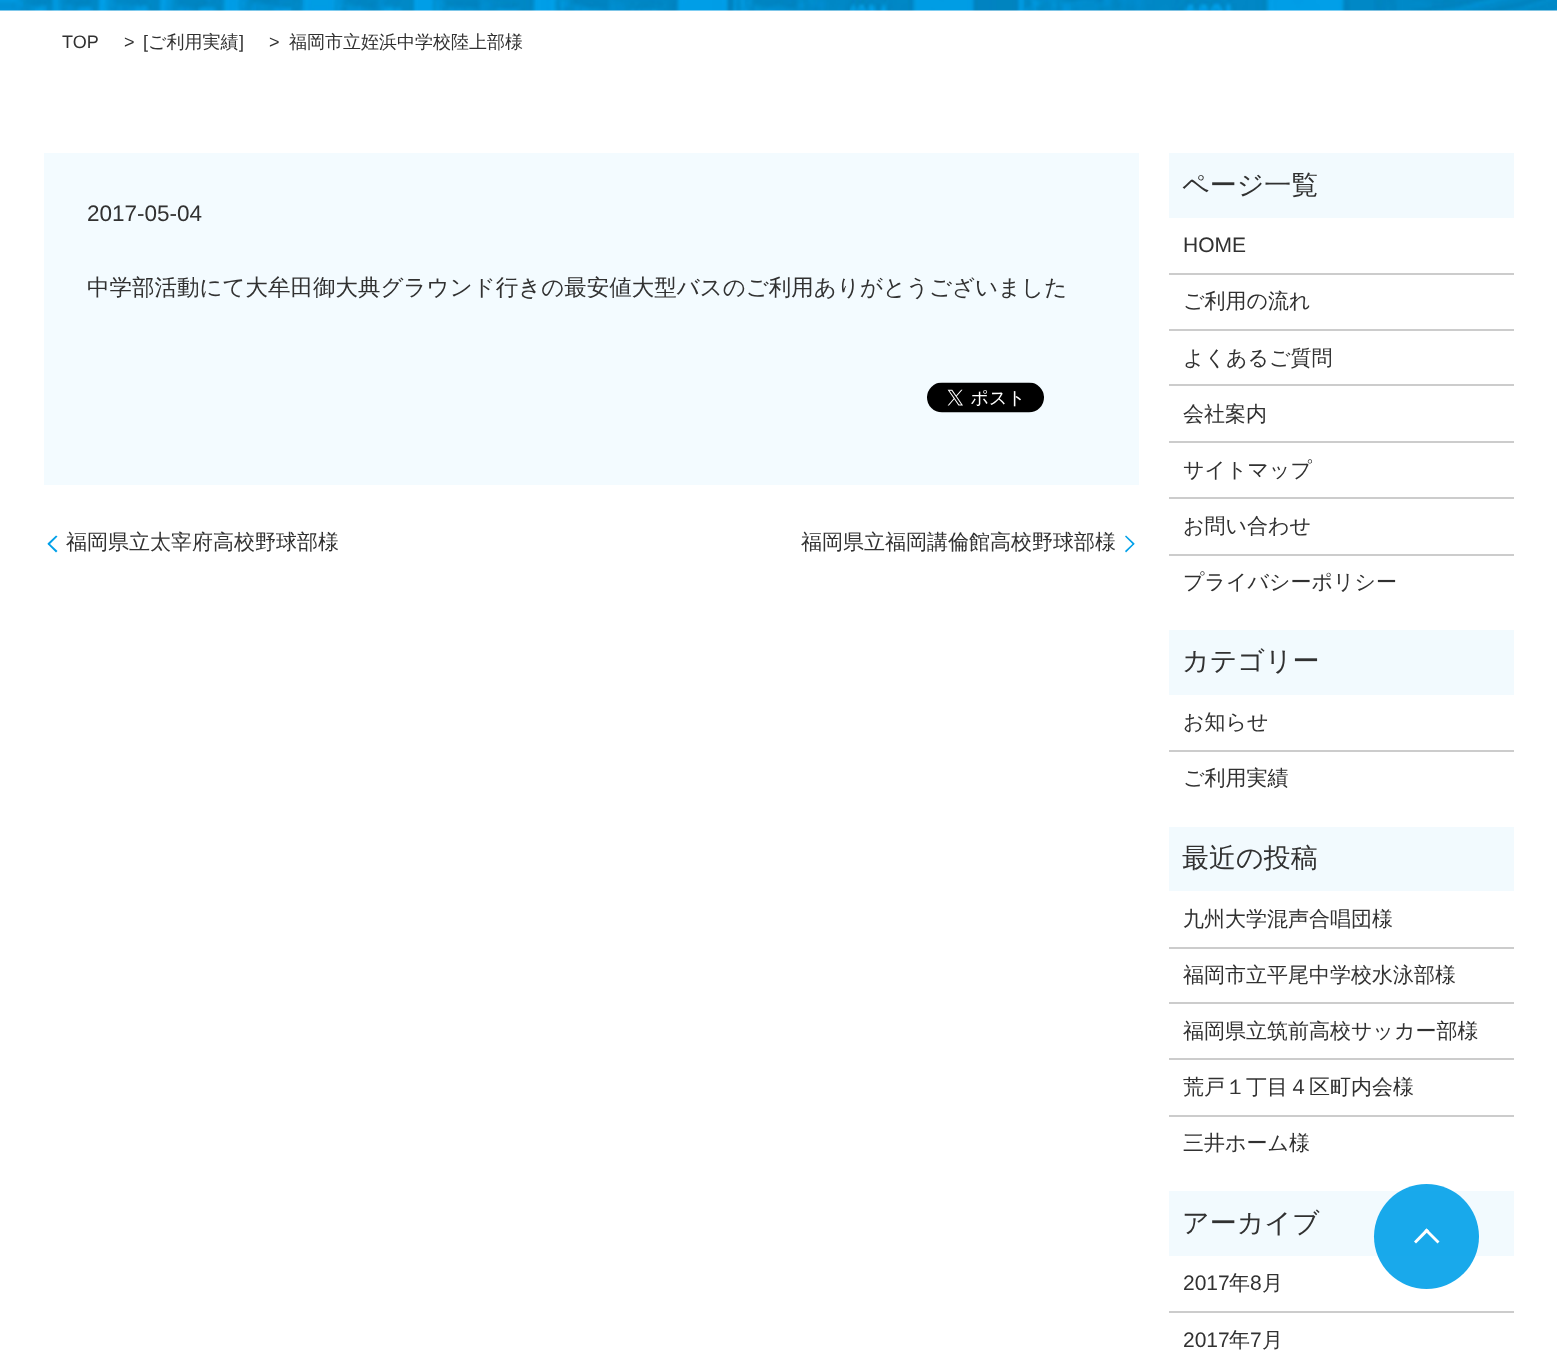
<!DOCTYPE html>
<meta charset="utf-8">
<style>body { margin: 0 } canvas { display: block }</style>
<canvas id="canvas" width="1557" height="1365"></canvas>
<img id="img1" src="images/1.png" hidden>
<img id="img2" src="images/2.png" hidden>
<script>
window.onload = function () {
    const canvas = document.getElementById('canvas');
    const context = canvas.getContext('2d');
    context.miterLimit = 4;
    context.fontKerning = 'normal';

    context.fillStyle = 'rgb(255, 255, 255)';
    context.fillRect(0, 0, 1557, 1365);
    context.drawImage(document.getElementById('img1'), 0, 0, 1557, 11);
    context.fillStyle = 'rgb(243, 251, 255)';
    context.fillRect(44, 153, 1095, 332);
    context.drawImage(document.getElementById('img2'), 927, 382, 117, 31);
    context.fillStyle = 'rgb(0, 160, 233)';
    context.beginPath();
    context.moveTo(47.5, 543.5);
    context.lineTo(56, 535.5);
    context.lineTo(57.5, 536.5);
    context.lineTo(49, 545);
    context.closePath();
    context.fill();
    context.beginPath();
    context.moveTo(56, 552.5);
    context.lineTo(47.5, 544);
    context.lineTo(49, 543);
    context.lineTo(57.5, 551);
    context.closePath();
    context.fill();
    context.beginPath();
    context.moveTo(1126, 535.5);
    context.lineTo(1134.5, 543.5);
    context.lineTo(1133.5, 545);
    context.lineTo(1125, 536.5);
    context.closePath();
    context.fill();
    context.beginPath();
    context.moveTo(1134.5, 544);
    context.lineTo(1126, 552.5);
    context.lineTo(1125, 551);
    context.lineTo(1133.5, 543);
    context.closePath();
    context.fill();
    context.fillStyle = 'rgb(242, 250, 254)';
    context.fillRect(1169, 153, 345, 65);
    context.fillStyle = 'rgb(204, 204, 204)';
    context.fillRect(1169, 273, 345, 2);
    context.fillRect(1169, 329, 345, 2);
    context.fillRect(1169, 384, 345, 2);
    context.fillRect(1169, 441, 345, 2);
    context.fillRect(1169, 497, 345, 2);
    context.fillRect(1169, 554, 345, 2);
    context.fillStyle = 'rgb(242, 250, 254)';
    context.fillRect(1169, 630, 345, 65);
    context.fillStyle = 'rgb(204, 204, 204)';
    context.fillRect(1169, 750, 345, 2);
    context.fillStyle = 'rgb(242, 250, 254)';
    context.fillRect(1169, 827, 345, 64);
    context.fillStyle = 'rgb(204, 204, 204)';
    context.fillRect(1169, 947, 345, 2);
    context.fillRect(1169, 1002, 345, 2);
    context.fillRect(1169, 1058, 345, 2);
    context.fillRect(1169, 1115, 345, 2);
    context.fillStyle = 'rgb(242, 250, 254)';
    context.fillRect(1169, 1191, 345, 65);
    context.fillStyle = 'rgb(204, 204, 204)';
    context.fillRect(1169, 1311, 345, 2);
    context.fillStyle = 'rgba(0, 160, 233, 0.9)';
    context.beginPath();
    context.arc(1426.5, 1236.5, 52.5, 0, 2 * Math.PI);
    context.fill();
    context.fillStyle = 'rgb(255, 255, 255)';
    context.beginPath();
    context.moveTo(1426.5, 1228.5);
    context.lineTo(1439.5, 1241.5);
    context.lineTo(1437.5, 1243.5);
    context.lineTo(1424.5, 1230.5);
    context.closePath();
    context.fill();
    context.beginPath();
    context.moveTo(1426.5, 1228.5);
    context.lineTo(1429, 1230.5);
    context.lineTo(1416, 1243.5);
    context.lineTo(1414, 1241.5);
    context.closePath();
    context.fill();
    context.font = '18px Liberation Sans';
    context.fillStyle = 'rgb(49, 49, 49)';
    context.fillText('TOP', 62, 48);
    context.fillText('>', 124, 48);
    context.fillText('[', 143, 48);
    context.font = '500 18px WenQuanYi Zen Hei';
    context.fillText('ご利用実績', 148, 48);
    context.font = '18px Liberation Sans';
    context.fillText(']', 239, 48);
    context.fillText('>', 269, 48);
    context.font = '500 18px WenQuanYi Zen Hei';
    context.fillText('福岡市立姪浜中学校陸上部様', 289, 48);
    context.font = '22.5px Liberation Sans';
    context.fillText('2017-05-04', 87, 221);
    context.font = '500 22.5px WenQuanYi Zen Hei';
    context.fillText('中学部活動にて大牟田御大典グラウンド行きの最安値大型バスのご利用ありがとうございました', 87, 295);
    context.font = '500 21px WenQuanYi Zen Hei';
    context.fillText('福岡県立太宰府高校野球部様', 66, 549);
    context.fillText('福岡県立福岡講倫館高校野球部様', 801, 549);
    context.font = '500 27px WenQuanYi Zen Hei';
    context.fillText('ページ一覧', 1182, 194);
    context.font = '21px Liberation Sans';
    context.fillText('HOME', 1183, 252);
    context.font = '500 21px WenQuanYi Zen Hei';
    context.fillText('ご利用の流れ', 1183, 308);
    context.fillText('よくあるご質問', 1183, 365);
    context.fillText('会社案内', 1183, 421);
    context.fillText('サイトマップ', 1183, 477);
    context.fillText('お問い合わせ', 1183, 533);
    context.fillText('プライバシーポリシー', 1183, 589);
    context.font = '500 27px WenQuanYi Zen Hei';
    context.fillText('カテゴリー', 1182, 670);
    context.font = '500 21px WenQuanYi Zen Hei';
    context.fillText('お知らせ', 1183, 729);
    context.fillText('ご利用実績', 1183, 785);
    context.font = '500 27px WenQuanYi Zen Hei';
    context.fillText('最近の投稿', 1182, 867);
    context.font = '500 21px WenQuanYi Zen Hei';
    context.fillText('九州大学混声合唱団様', 1183, 926);
    context.fillText('福岡市立平尾中学校水泳部様', 1183, 982);
    context.fillText('福岡県立筑前高校サッカー部様', 1183, 1038);
    context.fillText('荒戸１丁目４区町内会様', 1183, 1094);
    context.fillText('三井ホーム様', 1183, 1150);
    context.font = '500 27px WenQuanYi Zen Hei';
    context.fillText('アーカイブ', 1182, 1232);
    context.font = '21px Liberation Sans';
    context.fillText('2017', 1183, 1290);
    context.font = '500 21px WenQuanYi Zen Hei';
    context.fillText('年', 1229, 1290);
    context.font = '21px Liberation Sans';
    context.fillText('8', 1250, 1290);
    context.font = '500 21px WenQuanYi Zen Hei';
    context.fillText('月', 1262, 1290);
    context.font = '21px Liberation Sans';
    context.fillText('2017', 1183, 1347);
    context.font = '500 21px WenQuanYi Zen Hei';
    context.fillText('年', 1229, 1347);
    context.font = '21px Liberation Sans';
    context.fillText('7', 1250, 1347);
    context.font = '500 21px WenQuanYi Zen Hei';
    context.fillText('月', 1262, 1347);
};
</script>
